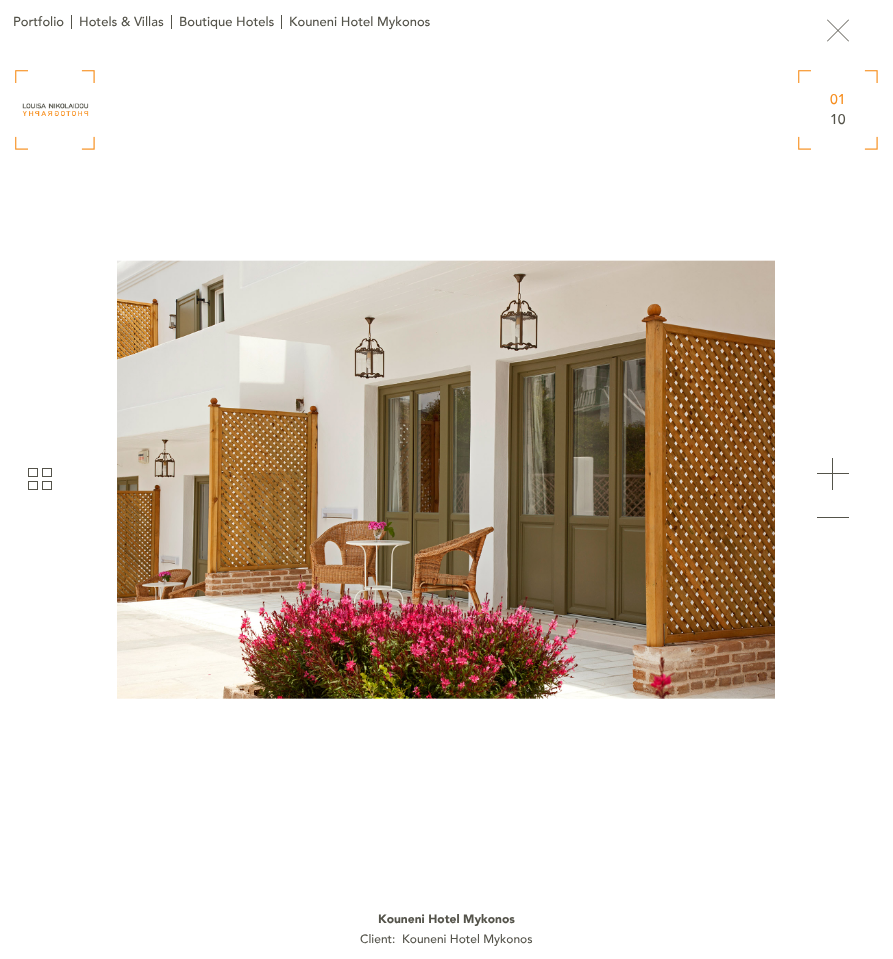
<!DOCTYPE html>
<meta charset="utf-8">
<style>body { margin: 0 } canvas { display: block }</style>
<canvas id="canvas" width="893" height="959"></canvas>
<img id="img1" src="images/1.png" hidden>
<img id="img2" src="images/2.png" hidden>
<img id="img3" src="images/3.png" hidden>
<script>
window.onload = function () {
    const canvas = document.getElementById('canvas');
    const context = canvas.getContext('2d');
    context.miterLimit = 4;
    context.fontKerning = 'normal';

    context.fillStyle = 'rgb(255, 255, 255)';
    context.fillRect(0, 0, 893, 959);
    context.fillStyle = 'rgb(84, 83, 74)';
    context.fillRect(71, 15, 1, 14);
    context.fillRect(171, 15, 1, 14);
    context.fillRect(281, 15, 1, 14);
    context.beginPath();
    context.moveTo(827.5, 19.5);
    context.lineTo(849, 41);
    context.lineTo(848.5, 41.5);
    context.lineTo(827, 20);
    context.closePath();
    context.fill();
    context.beginPath();
    context.moveTo(827, 41);
    context.lineTo(848.5, 19.5);
    context.lineTo(849, 20);
    context.lineTo(827.5, 41.5);
    context.closePath();
    context.fill();
    context.drawImage(document.getElementById('img1'), 798, 70, 80, 80);
    context.strokeStyle = 'rgb(84, 83, 74)';
    context.strokeRect(28.5, 468.5, 9, 8);
    context.strokeRect(42.5, 468.5, 9, 8);
    context.strokeRect(28.5, 481.5, 9, 8);
    context.strokeRect(42.5, 481.5, 9, 8);
    context.drawImage(document.getElementById('img2'), 117, 260, 658, 439);
    context.fillRect(817, 473, 32, 1);
    context.fillRect(832, 458, 1, 32);
    context.fillRect(817, 517, 32, 1);
    context.drawImage(document.getElementById('img3'), 15, 70, 80, 80);
    context.font = '500 13px Avenir';
    context.fillText('Portfolio', 13, 26);
    context.fillText('Hotels & Villas', 79, 26);
    context.fillText('Boutique Hotels', 179, 26);
    context.fillText('Kouneni Hotel Mykonos', 289, 26);
    context.font = '500 14px Avenir';
    context.fillStyle = 'rgb(247, 142, 30)';
    context.fillText('01', 830, 104);
    context.fillStyle = 'rgb(84, 83, 74)';
    context.fillText('10', 830, 124);
    context.font = '900 12px Avenir';
    context.fillText('Kouneni Hotel Mykonos', 378, 923);
    context.font = '500 12px Avenir';
    context.fillText('Client:', 360, 943);
    context.fillText('Kouneni Hotel Mykonos', 402, 943);
};
</script>
